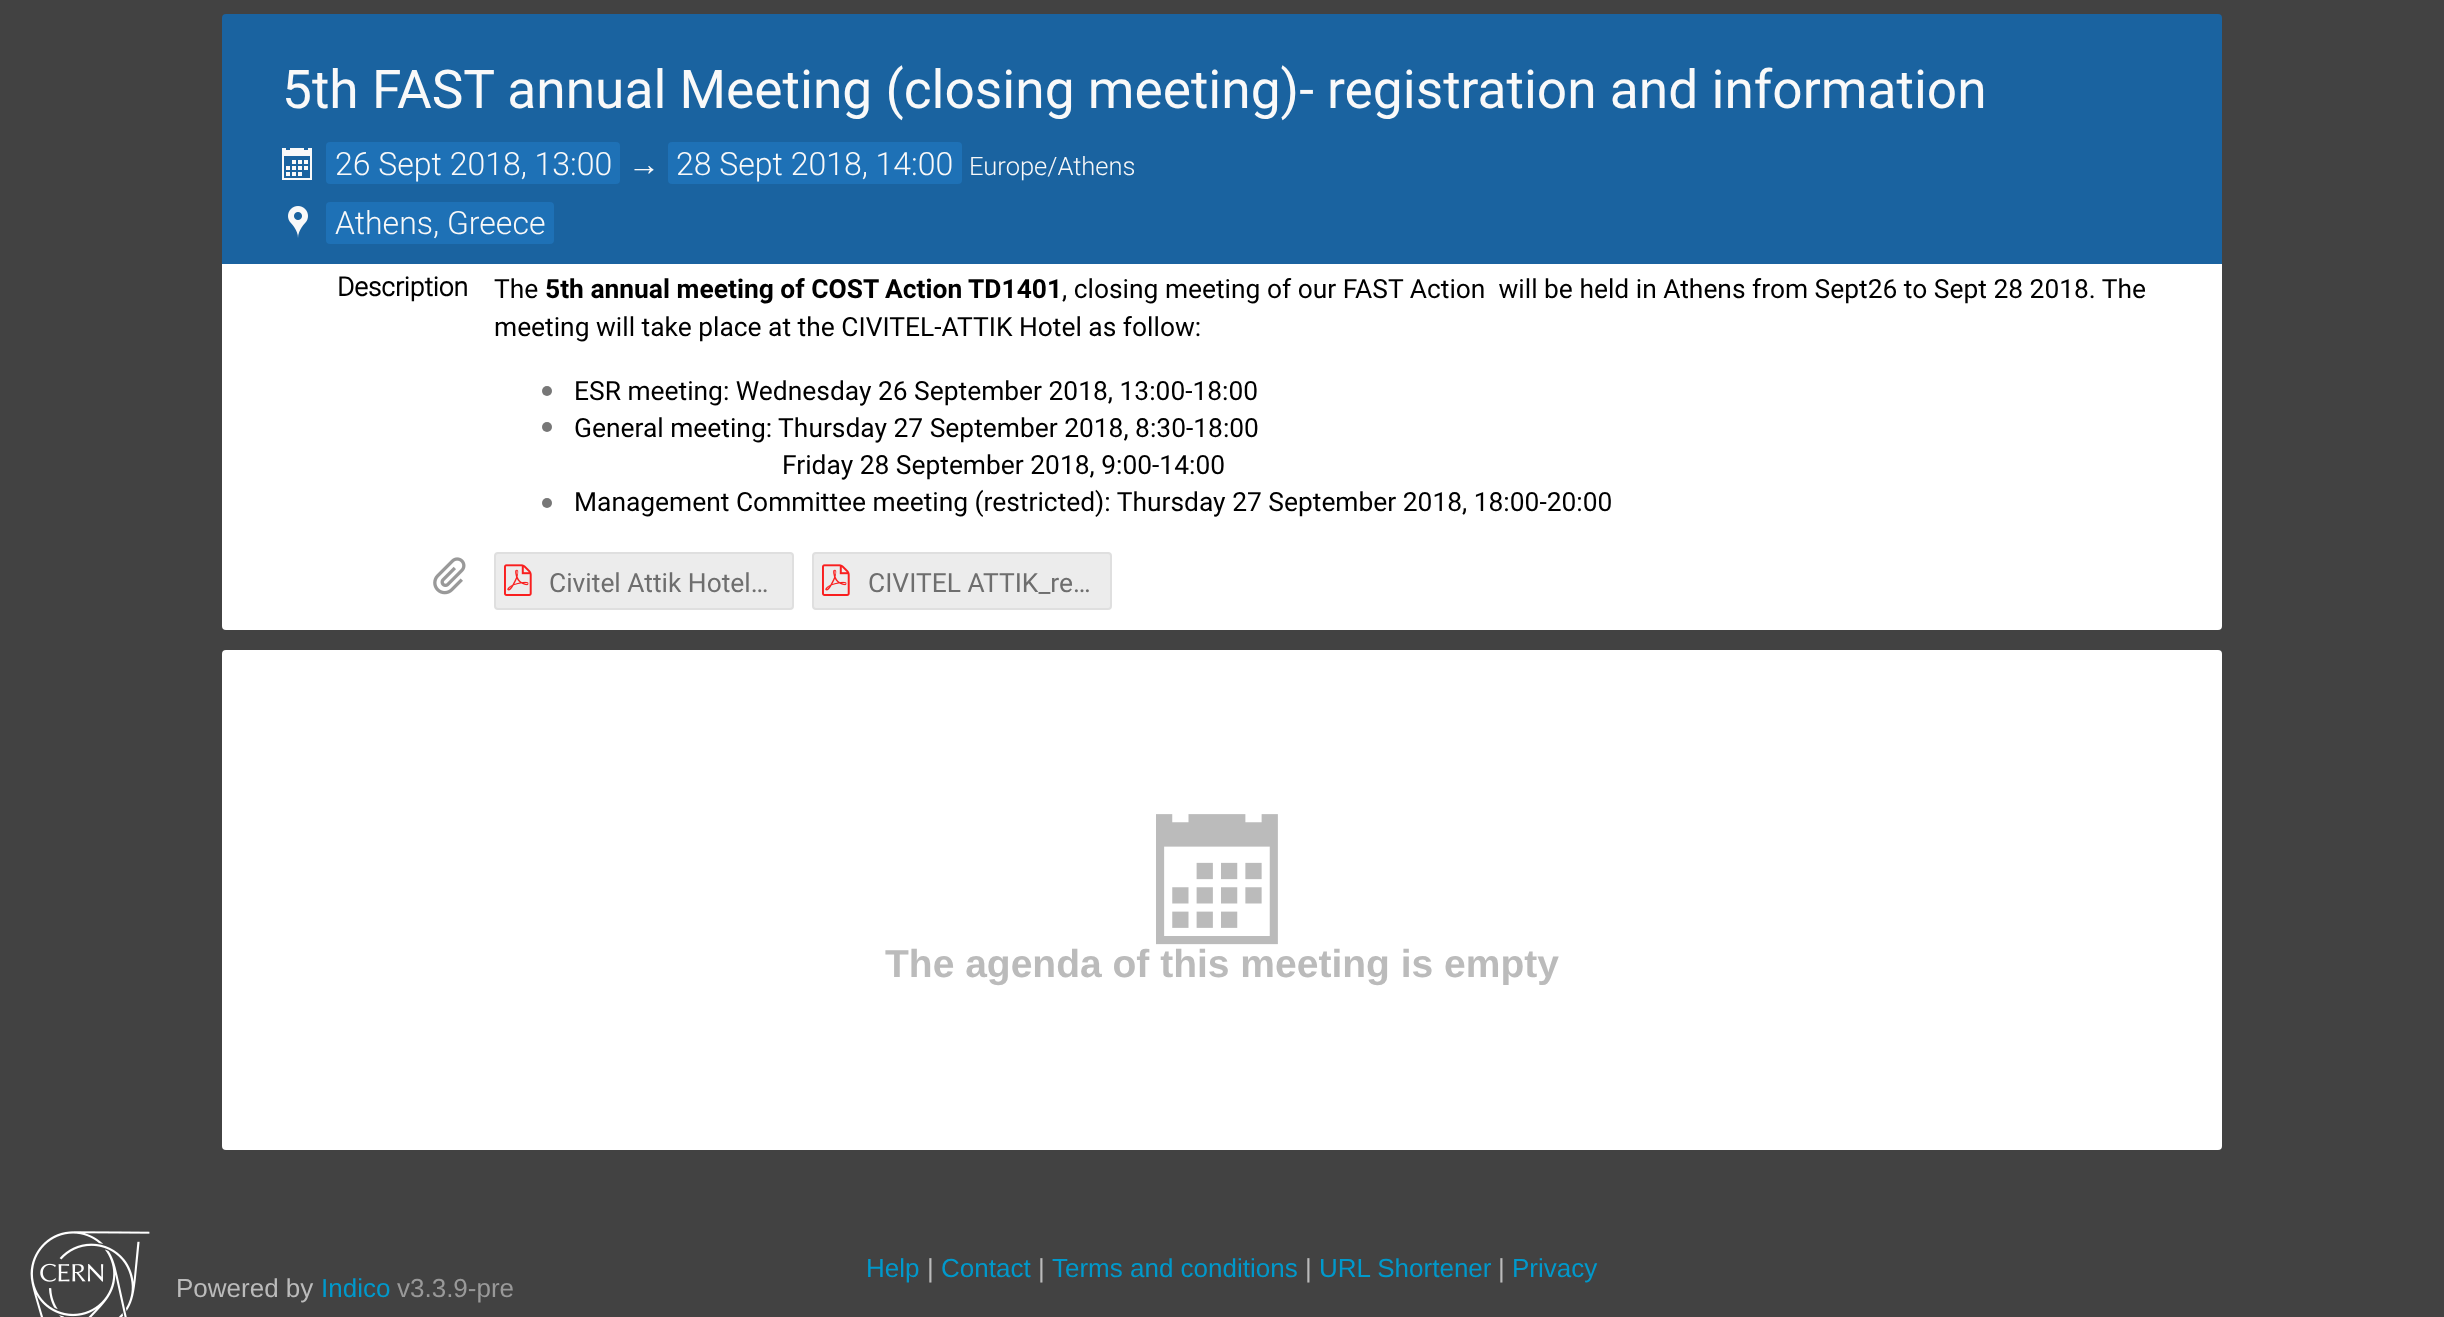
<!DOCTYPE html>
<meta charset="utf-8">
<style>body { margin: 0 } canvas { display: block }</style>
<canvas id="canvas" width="2444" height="1317"></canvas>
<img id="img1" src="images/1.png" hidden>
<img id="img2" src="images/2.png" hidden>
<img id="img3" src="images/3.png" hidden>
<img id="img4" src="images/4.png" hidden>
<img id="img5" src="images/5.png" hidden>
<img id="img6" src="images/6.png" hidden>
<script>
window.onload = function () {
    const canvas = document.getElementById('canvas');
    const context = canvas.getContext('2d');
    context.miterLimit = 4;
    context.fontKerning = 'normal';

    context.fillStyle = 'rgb(66, 66, 66)';
    context.fillRect(0, 0, 2444, 1317);
    context.fillStyle = 'rgb(26, 99, 160)';
    context.beginPath();
    context.roundRect(222, 14, 2000, 250, [4, 4, 0, 0]);
    context.fill();
    context.drawImage(document.getElementById('img1'), 282, 148, 30, 32);
    context.fillStyle = 'rgb(30, 113, 182)';
    context.beginPath();
    context.roundRect(326, 142, 294, 42, 4);
    context.fill();
    context.beginPath();
    context.roundRect(668, 142, 294, 42, 4);
    context.fill();
    context.drawImage(document.getElementById('img2'), 288, 206, 20, 32);
    context.beginPath();
    context.roundRect(326, 202, 228, 42, 4);
    context.fill();
    context.fillStyle = 'rgb(255, 255, 255)';
    context.beginPath();
    context.roundRect(222, 264, 2000, 366, [0, 0, 4, 4]);
    context.fill();
    context.fillStyle = 'rgb(119, 119, 119)';
    context.beginPath();
    context.arc(547, 391, 5, 0, 2 * Math.PI);
    context.fill();
    context.beginPath();
    context.arc(547, 427, 5, 0, 2 * Math.PI);
    context.fill();
    context.beginPath();
    context.arc(547, 503, 5, 0, 2 * Math.PI);
    context.fill();
    context.drawImage(document.getElementById('img3'), 433, 557, 33, 38);
    context.fillStyle = 'rgb(236, 236, 236)';
    context.beginPath();
    context.roundRect(495, 553, 298, 56, 3);
    context.fill();
    context.strokeStyle = 'rgb(223, 223, 223)';
    context.lineWidth = 2;
    context.stroke();
    context.drawImage(document.getElementById('img4'), 504, 564, 28, 32);
    context.beginPath();
    context.roundRect(813, 553, 298, 56, 3);
    context.fill();
    context.stroke();
    context.drawImage(document.getElementById('img4'), 822, 564, 28, 32);
    context.fillStyle = 'rgb(255, 255, 255)';
    context.beginPath();
    context.roundRect(222, 650, 2000, 500, 4);
    context.fill();
    context.drawImage(document.getElementById('img5'), 1156, 814, 122, 131);
    context.drawImage(document.getElementById('img6'), 30, 1231, 120, 86);
    context.font = '53.3px Roboto';
    context.fillStyle = 'rgb(249, 249, 249)';
    context.fillText('5th FAST annual Meeting (closing meeting)- registration and information', 282, 108);
    context.font = '300 32px Roboto';
    context.fillText('26 Sept 2018, 13:00', 335, 175);
    context.font = '32px "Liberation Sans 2"';
    context.fillText('→', 628, 175);
    context.font = '300 32px Roboto';
    context.fillText('28 Sept 2018, 14:00', 676, 175);
    context.font = '300 25.5px Roboto';
    context.fillText('Europe/Athens', 969, 175);
    context.font = '300 32px Roboto';
    context.fillText('Athens, Greece', 335, 234);
    context.font = 'bold 26.4px Roboto';
    context.fillStyle = 'rgb(0, 0, 0)';
    context.fillText('Description', 337, 296);
    context.font = '26.4px Roboto';
    context.fillText('The', 494, 298);
    context.font = 'bold 26.4px "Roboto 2"';
    context.fillText('5th annual meeting of COST Action TD1401', 545, 298);
    context.font = '26.4px Roboto';
    context.fillText(', closing meeting of our FAST Action  will be held in Athens from Sept26 to Sept 28 2018. The', 1062, 298);
    context.fillText('meeting will take place at the CIVITEL-ATTIK Hotel as follow:', 494, 336);
    context.fillText('ESR meeting: Wednesday 26 September 2018, 13:00-18:00', 574, 400);
    context.fillText('General meeting: Thursday 27 September 2018, 8:30-18:00', 574, 437);
    context.fillText('Friday 28 September 2018, 9:00-14:00', 782, 474);
    context.fillText('Management Committee meeting (restricted): Thursday 27 September 2018, 18:00-20:00', 574, 511);
    context.fillStyle = 'rgb(110, 110, 110)';
    context.fillText('Civitel Attik Hotel…', 549, 592);
    context.fillText('CIVITEL ATTIK_re…', 868, 592);
    context.font = 'bold 39px Liberation Sans';
    context.fillStyle = 'rgb(187, 187, 187)';
    context.fillText('The agenda of this meeting is empty', 885, 977);
    context.font = '26px Liberation Sans';
    context.fillStyle = 'rgb(0, 153, 204)';
    context.fillText('Help', 866, 1277);
    context.fillStyle = 'rgb(187, 187, 187)';
    context.fillText('|', 927, 1277);
    context.fillStyle = 'rgb(0, 153, 204)';
    context.fillText('Contact', 941, 1277);
    context.fillStyle = 'rgb(187, 187, 187)';
    context.fillText('|', 1038, 1277);
    context.fillStyle = 'rgb(0, 153, 204)';
    context.fillText('Terms and conditions', 1052, 1277);
    context.fillStyle = 'rgb(187, 187, 187)';
    context.fillText('|', 1305, 1277);
    context.fillStyle = 'rgb(0, 153, 204)';
    context.fillText('URL Shortener', 1319, 1277);
    context.fillStyle = 'rgb(187, 187, 187)';
    context.fillText('|', 1498, 1277);
    context.fillStyle = 'rgb(0, 153, 204)';
    context.fillText('Privacy', 1512, 1277);
    context.fillStyle = 'rgb(187, 187, 187)';
    context.fillText('Powered by', 176, 1297);
    context.fillStyle = 'rgb(0, 153, 204)';
    context.fillText('Indico', 321, 1297);
    context.fillStyle = 'rgb(153, 153, 153)';
    context.fillText('v3.3.9-pre', 397, 1297);
};
</script>
